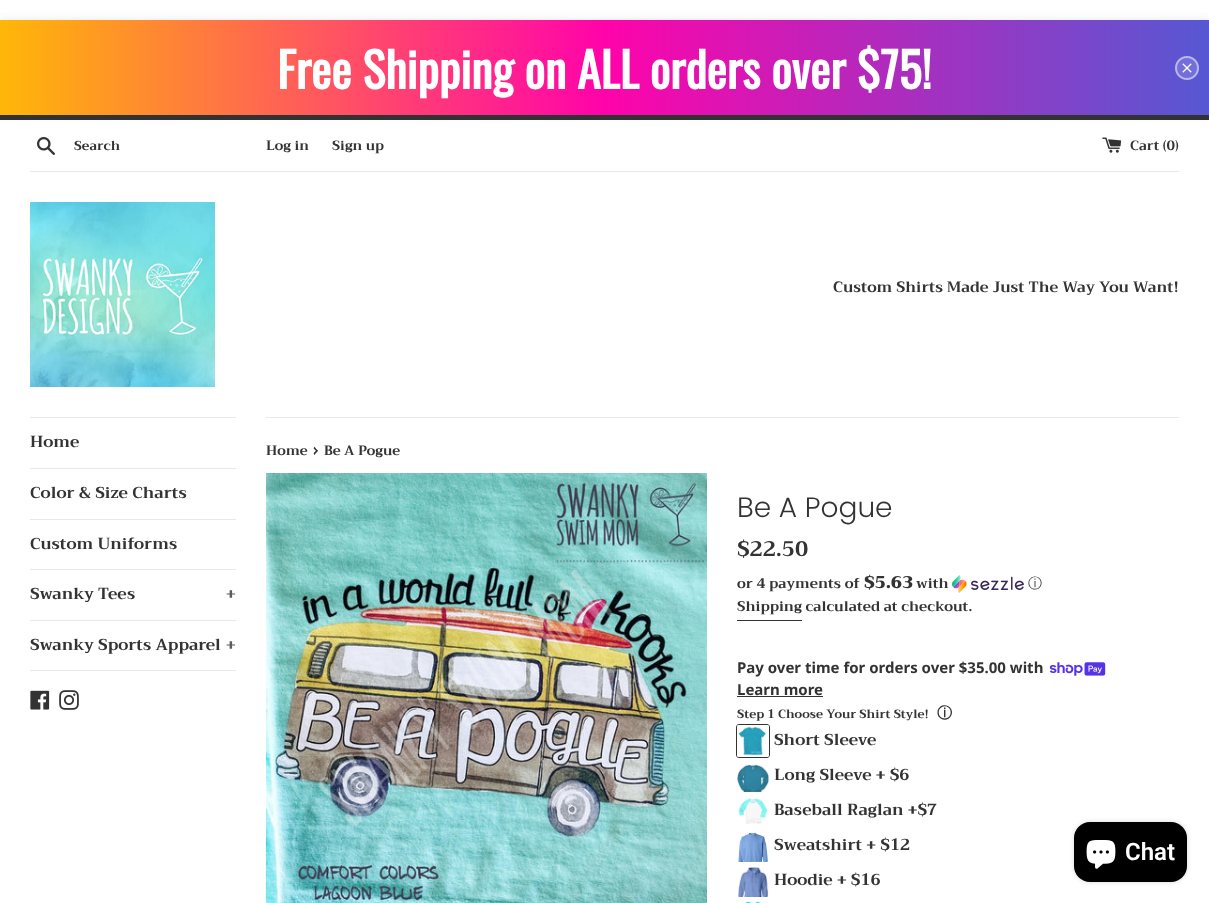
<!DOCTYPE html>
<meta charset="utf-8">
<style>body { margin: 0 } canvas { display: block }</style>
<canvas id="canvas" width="1209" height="903"></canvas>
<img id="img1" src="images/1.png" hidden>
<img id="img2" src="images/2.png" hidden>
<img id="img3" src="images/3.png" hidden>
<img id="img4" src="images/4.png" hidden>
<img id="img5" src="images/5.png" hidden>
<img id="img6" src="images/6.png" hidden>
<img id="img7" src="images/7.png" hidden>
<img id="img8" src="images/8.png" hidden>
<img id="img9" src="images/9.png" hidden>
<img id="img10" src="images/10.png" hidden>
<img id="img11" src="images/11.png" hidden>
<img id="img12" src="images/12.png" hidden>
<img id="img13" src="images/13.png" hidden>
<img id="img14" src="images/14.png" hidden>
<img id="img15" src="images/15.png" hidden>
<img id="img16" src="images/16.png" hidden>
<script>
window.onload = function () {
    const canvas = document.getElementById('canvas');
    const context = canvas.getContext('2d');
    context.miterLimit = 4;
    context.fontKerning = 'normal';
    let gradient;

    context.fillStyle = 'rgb(255, 255, 255)';
    context.fillRect(0, 0, 1209, 903);
    context.fillStyle = 'rgb(51, 51, 51)';
    context.fillRect(0, 115, 1209, 5);
    context.fillStyle = 'rgba(33, 43, 54, 0.1)';
    context.filter = 'blur(5px)';
    context.beginPath();
    context.rect(0, 20, 1209, 95);
    context.fill();
    context.filter = 'none';
    gradient = context.createLinearGradient(0, 68, 1209, 67);
    gradient.addColorStop(0, 'rgb(255, 183, 8)');
    gradient.addColorStop(0.5, 'rgb(255, 3, 170)');
    gradient.addColorStop(1, 'rgb(86, 88, 211)');
    context.fillStyle = gradient;
    context.fillRect(0, 20, 1209, 95);
    context.drawImage(document.getElementById('img1'), 1175, 56, 24, 24);
    context.drawImage(document.getElementById('img2'), 37, 137, 18, 18);
    context.drawImage(document.getElementById('img3'), 1102, 137, 20, 16);
    context.fillStyle = 'rgb(232, 232, 232)';
    context.fillRect(30, 171, 1149, 1);
    context.drawImage(document.getElementById('img4'), 30, 202, 185, 185);
    context.fillRect(30, 417, 206, 1);
    context.fillRect(30, 468, 206, 1);
    context.fillRect(30, 519, 206, 1);
    context.fillRect(30, 569, 206, 1);
    context.fillRect(30, 620, 206, 1);
    context.fillRect(30, 670, 206, 1);
    context.drawImage(document.getElementById('img5'), 30, 690, 20, 20);
    context.drawImage(document.getElementById('img6'), 59, 690, 20, 20);
    context.fillRect(266, 417, 913, 1);
    context.drawImage(document.getElementById('img7'), 266, 473, 441, 430);
    context.drawImage(document.getElementById('img8'), 952, 575, 72, 18);
    context.fillStyle = 'rgb(51, 51, 51)';
    context.fillRect(737, 620, 65, 1);
    context.drawImage(document.getElementById('img9'), 1049, 662, 57, 14);
    context.fillRect(737, 696, 86, 1);
    context.beginPath();
    context.roundRect(736.5, 724.5, 33, 33, 2.5);
    context.strokeStyle = 'rgb(51, 51, 51)';
    context.stroke();
    context.drawImage(document.getElementById('img10'), 737, 725, 32, 32);
    context.beginPath();
    context.roundRect(737.5, 725.5, 31, 31, 1.5);
    context.strokeStyle = 'rgb(255, 255, 255)';
    context.stroke();
    context.drawImage(document.getElementById('img11'), 737, 764, 32, 28);
    context.drawImage(document.getElementById('img12'), 738, 798, 30, 26);
    context.drawImage(document.getElementById('img13'), 738, 832, 30, 30);
    context.drawImage(document.getElementById('img14'), 738, 867, 31, 30);
    context.drawImage(document.getElementById('img15'), 745, 901, 16, 2);
    context.fillStyle = 'rgba(0, 0, 0, 0.15)';
    context.filter = 'blur(2.5px)';
    context.beginPath();
    context.roundRect(1074, 822, 113, 60, 16);
    context.fill();
    context.filter = 'none';
    context.fillStyle = 'rgb(0, 0, 0)';
    context.beginPath();
    context.roundRect(1074, 822, 113, 60, 16);
    context.fill();
    context.drawImage(document.getElementById('img16'), 1086, 840, 30, 29);
    context.font = 'bold 48px Oswald';
    context.fillStyle = 'rgb(255, 255, 255)';
    context.fillText('Free Shipping on ALL orders over $75!', 277, 89);
    context.font = 'bold 13px Trirong';
    context.fillStyle = 'rgb(51, 51, 51)';
    context.fillText('Search', 74, 150);
    context.font = 'bold 13.5px Trirong';
    context.fillText('Log in', 266, 150);
    context.fillText('Sign up', 332, 150);
    context.fillText('Cart (0)', 1130, 150);
    context.font = 'bold 15px Trirong';
    context.fillText('Custom Shirts Made Just The Way You Want!', 833, 292);
    context.font = 'bold 16px Trirong';
    context.fillText('Home', 30, 447);
    context.fillText('Color & Size Charts', 30, 498);
    context.fillText('Custom Uniforms', 30, 549);
    context.fillText('Swanky Tees', 30, 599);
    context.fillStyle = 'rgb(92, 92, 92)';
    context.fillText('+', 226, 599);
    context.fillStyle = 'rgb(51, 51, 51)';
    context.fillText('Swanky Sports Apparel', 30, 650);
    context.fillStyle = 'rgb(92, 92, 92)';
    context.fillText('+', 226, 650);
    context.font = 'bold 13.5px Trirong';
    context.fillStyle = 'rgb(51, 51, 51)';
    context.fillText('Home', 266, 455);
    context.font = 'bold 16px Trirong';
    context.fillText('›', 313, 455);
    context.font = 'bold 13.5px Trirong';
    context.fillText('Be A Pogue', 324, 455);
    context.font = '300 28px Poppins';
    context.fillText('Be A Pogue', 737, 517);
    context.font = 'bold 21px Trirong';
    context.fillText('$22.50', 737, 556);
    context.font = 'bold 14px Trirong';
    context.fillText('or 4 payments of', 737, 588);
    context.font = '900 17px Trirong';
    context.fillText('$5.63', 864, 588);
    context.font = 'bold 14px Trirong';
    context.fillText('with', 916, 588);
    context.font = '500 14px WenQuanYi Zen Hei';
    context.fillText('ⓘ', 1028, 588);
    context.font = 'bold 14px Trirong';
    context.fillText('Shipping calculated at checkout.', 737, 611);
    context.font = 'bold 15px Noto Sans';
    context.fillText('Pay over time for orders over $35.00 with', 737, 673);
    context.fillText('Learn more', 737, 695);
    context.font = 'bold 12px Trirong';
    context.fillText('Step 1 Choose Your Shirt Style!', 737, 718);
    context.font = 'bold 15px WenQuanYi Zen Hei';
    context.fillText('ⓘ', 937, 718);
    context.font = 'bold 16px Trirong';
    context.fillText('Short Sleeve', 774, 745);
    context.fillText('Long Sleeve + $6', 774, 780);
    context.fillText('Baseball Raglan +$7', 774, 815);
    context.fillText('Sweatshirt + $12', 774, 850);
    context.fillText('Hoodie + $16', 774, 885);
    context.font = '600 24px Roboto';
    context.fillStyle = 'rgb(255, 255, 255)';
    context.fillText('Chat', 1125, 860);
};
</script>
